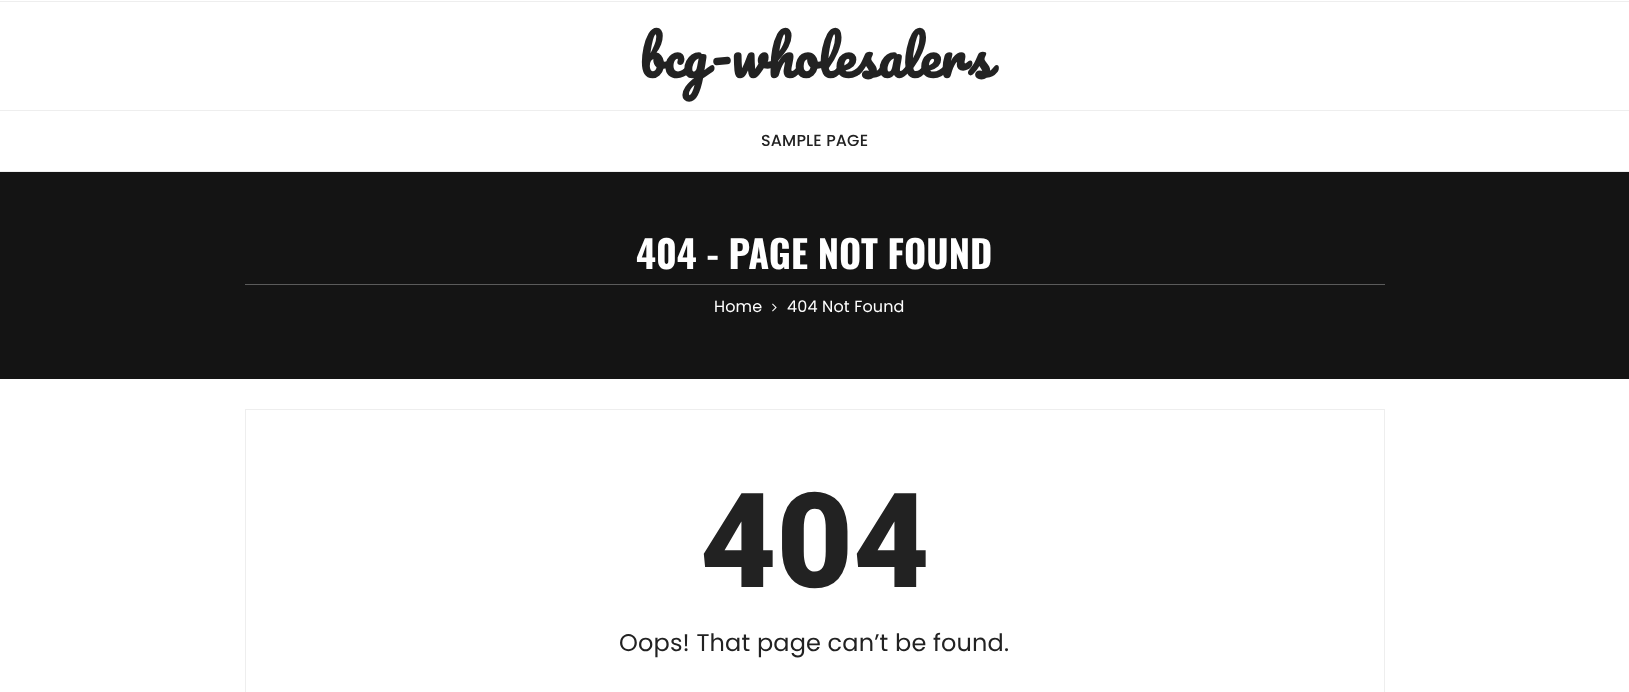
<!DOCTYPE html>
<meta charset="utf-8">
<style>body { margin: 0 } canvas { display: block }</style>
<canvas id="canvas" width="1629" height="692"></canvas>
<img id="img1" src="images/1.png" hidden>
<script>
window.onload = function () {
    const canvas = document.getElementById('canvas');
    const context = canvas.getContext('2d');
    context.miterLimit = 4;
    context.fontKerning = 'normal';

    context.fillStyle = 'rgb(255, 255, 255)';
    context.fillRect(0, 0, 1629, 692);
    context.fillStyle = 'rgb(238, 238, 238)';
    context.fillRect(0, 1, 1629, 1);
    context.fillRect(0, 110, 1629, 1);
    context.fillRect(0, 171, 1629, 1);
    context.fillStyle = 'rgb(20, 20, 20)';
    context.fillRect(0, 172, 1629, 207);
    context.fillStyle = 'rgb(91, 91, 91)';
    context.fillRect(245, 284, 1140, 1);
    context.drawImage(document.getElementById('img1'), 772, 303, 5, 9);
    context.strokeStyle = 'rgb(238, 238, 238)';
    context.strokeRect(245.5, 409.5, 1139, 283);
    context.letterSpacing = '0.15px';
    context.font = 'bold 52px Pacifico';
    context.fillStyle = 'rgb(34, 34, 34)';
    context.fillText('bcg-wholesalers', 639, 78);
    context.font = '500 16px Poppins';
    context.fillText('SAMPLE PAGE', 761, 146);
    context.letterSpacing = '0px';
    context.font = 'bold 38px Oswald';
    context.fillStyle = 'rgb(255, 255, 255)';
    context.fillText('404 - PAGE NOT FOUND', 636, 269);
    context.letterSpacing = '0.15px';
    context.font = '16px Poppins';
    context.fillText('Home', 714, 312);
    context.fillText('404 Not Found', 787, 312);
    context.letterSpacing = '0px';
    context.font = '900 132px Roboto';
    context.fillStyle = 'rgb(34, 34, 34)';
    context.fillText('404', 700, 587);
    context.letterSpacing = '0.15px';
    context.font = '24px Poppins';
    context.fillText('Oops! That page can’t be found.', 619, 651);
};
</script>
